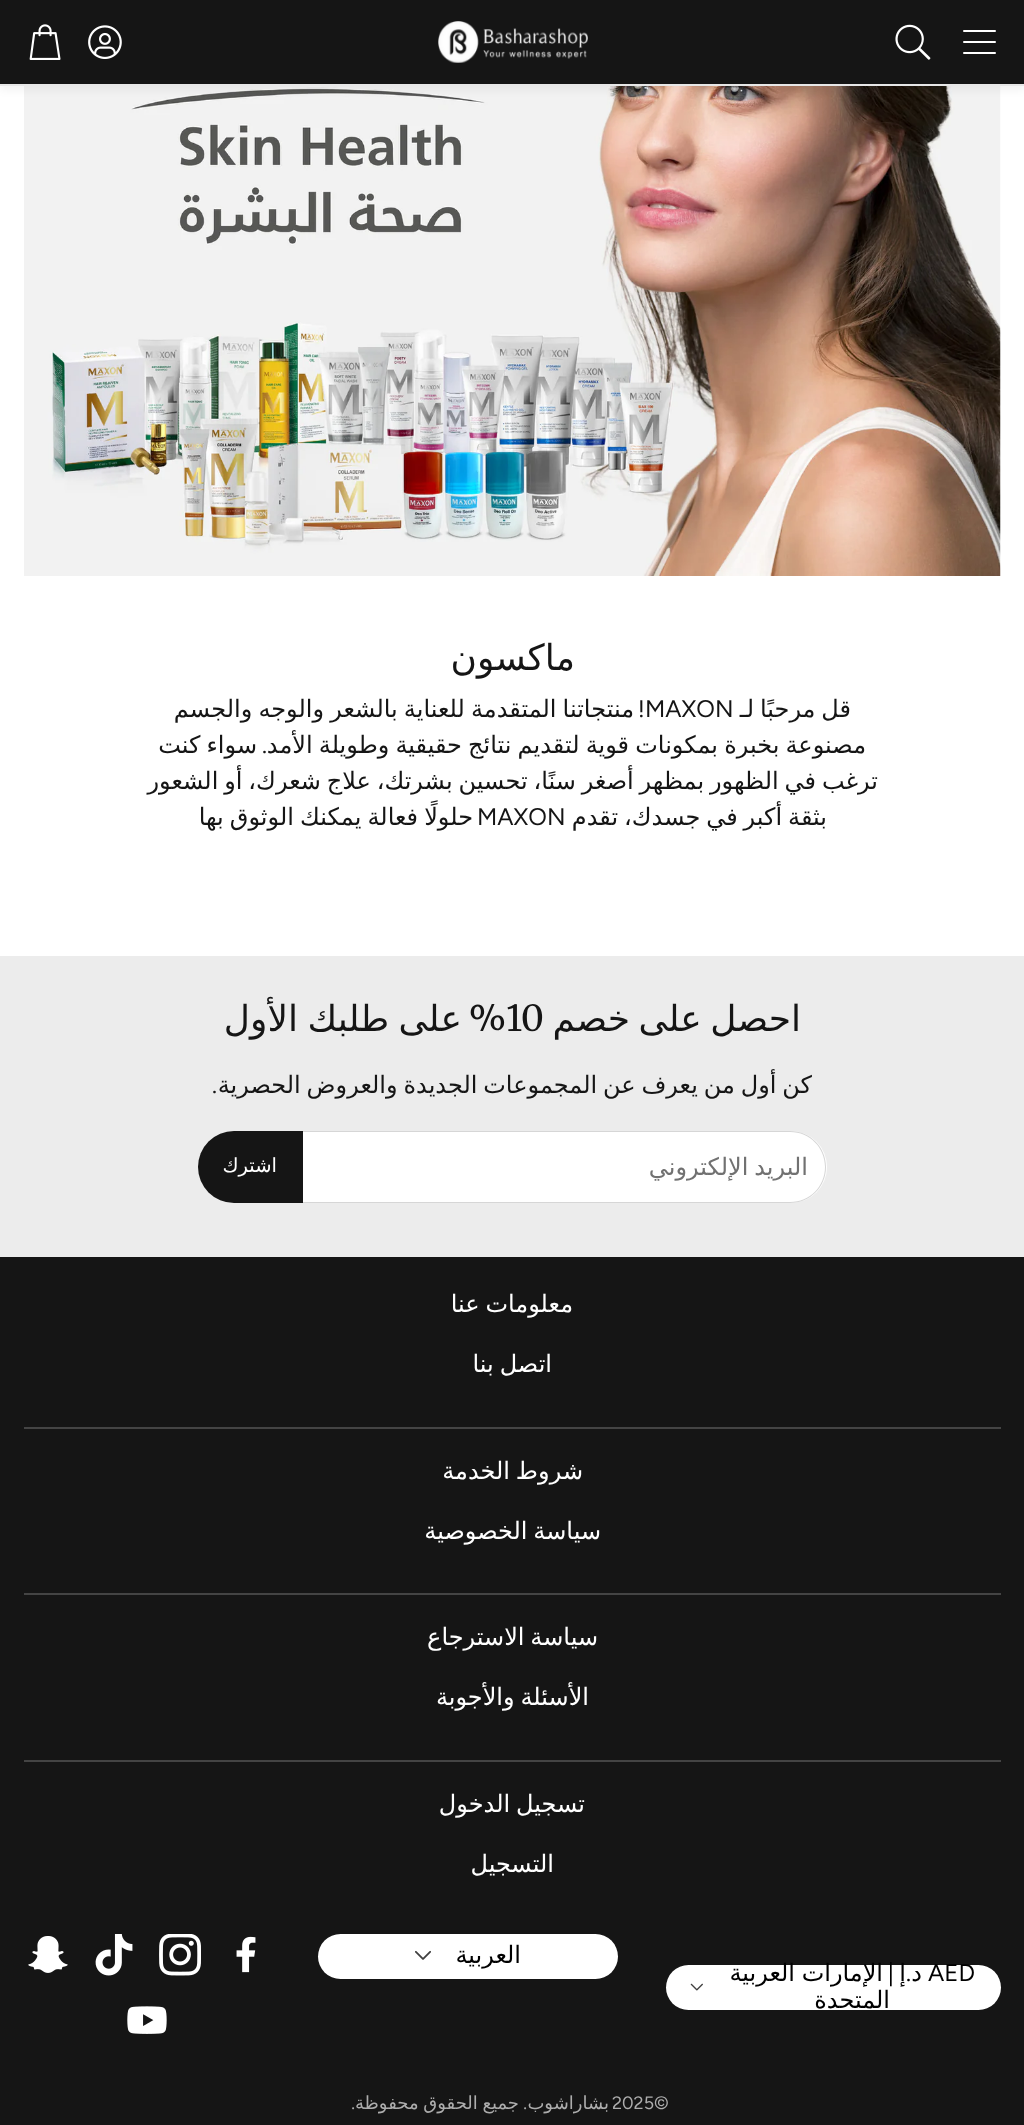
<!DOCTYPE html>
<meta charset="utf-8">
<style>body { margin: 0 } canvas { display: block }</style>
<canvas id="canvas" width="1024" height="2125"></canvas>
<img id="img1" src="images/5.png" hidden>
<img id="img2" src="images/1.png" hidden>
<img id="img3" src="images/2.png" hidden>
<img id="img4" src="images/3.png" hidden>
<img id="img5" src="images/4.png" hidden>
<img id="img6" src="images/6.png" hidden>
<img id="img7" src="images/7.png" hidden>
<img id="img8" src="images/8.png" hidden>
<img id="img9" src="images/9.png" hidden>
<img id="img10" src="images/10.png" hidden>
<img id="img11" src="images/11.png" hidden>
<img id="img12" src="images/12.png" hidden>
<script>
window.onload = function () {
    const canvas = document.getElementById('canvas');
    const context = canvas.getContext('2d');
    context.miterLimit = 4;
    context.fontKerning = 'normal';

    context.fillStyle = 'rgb(255, 255, 255)';
    context.fillRect(0, 0, 1024, 2125);
    context.drawImage(document.getElementById('img1'), 24, 86, 977, 490);
    context.fillStyle = 'rgba(0, 0, 0, 0.05)';
    context.filter = 'blur(4.5px)';
    context.beginPath();
    context.rect(0, 5, 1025, 85);
    context.fill();
    context.filter = 'none';
    context.fillStyle = 'rgb(21, 21, 21)';
    context.fillRect(0, 0, 1024, 84);
    context.fillStyle = 'rgb(231, 231, 231)';
    context.fillRect(0, 84, 1024, 2);
    context.fillStyle = 'rgb(255, 255, 255)';
    context.beginPath();
    context.roundRect(963, 30, 33, 2, 1);
    context.fill();
    context.beginPath();
    context.roundRect(963, 41, 33, 2, 1);
    context.fill();
    context.beginPath();
    context.roundRect(963, 52, 33, 2, 1);
    context.fill();
    context.drawImage(document.getElementById('img2'), 895, 24, 36, 36);
    context.drawImage(document.getElementById('img3'), 438, 21, 150, 42);
    context.drawImage(document.getElementById('img4'), 88, 25, 34, 34);
    context.drawImage(document.getElementById('img5'), 29, 24, 32, 36);
    context.fillStyle = 'rgb(236, 236, 236)';
    context.fillRect(0, 956, 1024, 301);
    context.fillStyle = 'rgb(255, 255, 255)';
    context.beginPath();
    context.roundRect(303, 1131, 524, 72, [0, 36, 36, 0]);
    context.fill();
    context.fillStyle = 'rgb(214, 214, 214)';
    context.beginPath();
    context.moveTo(303, 1131);
    context.lineTo(790, 1131);
    context.bezierCurveTo(810, 1131, 826, 1147, 826, 1167);
    context.bezierCurveTo(826, 1187, 810, 1203, 790, 1203);
    context.lineTo(303, 1203);
    context.closePath();
    context.moveTo(303, 1132);
    context.lineTo(790, 1132);
    context.bezierCurveTo(810, 1132, 825, 1148, 825, 1167);
    context.bezierCurveTo(825, 1186, 810, 1202, 790, 1202);
    context.lineTo(303, 1202);
    context.closePath();
    context.fill('evenodd');
    context.fillStyle = 'rgb(21, 21, 21)';
    context.beginPath();
    context.roundRect(198, 1131, 105, 72, [36, 0, 0, 36]);
    context.fill();
    context.fillRect(0, 1257, 1024, 868);
    context.fillStyle = 'rgb(68, 68, 68)';
    context.fillRect(24, 1427, 977, 2);
    context.fillRect(24, 1593, 977, 2);
    context.fillRect(24, 1760, 977, 2);
    context.fillStyle = 'rgb(255, 255, 255)';
    context.beginPath();
    context.roundRect(318, 1934, 300, 45, 22.5);
    context.fill();
    context.drawImage(document.getElementById('img6'), 415, 1950, 16, 10);
    context.drawImage(document.getElementById('img7'), 236, 1936, 20, 37);
    context.drawImage(document.getElementById('img8'), 159, 1934, 42, 42);
    context.drawImage(document.getElementById('img9'), 95, 1934, 38, 42);
    context.drawImage(document.getElementById('img10'), 28, 1936, 40, 37);
    context.drawImage(document.getElementById('img11'), 127, 2006, 40, 28);
    context.beginPath();
    context.roundRect(666, 1965, 335, 45, 22.5);
    context.fill();
    context.drawImage(document.getElementById('img12'), 690, 1983, 13, 8);
    context.direction = 'rtl';
    context.font = '36px DejaVu Sans';
    context.fillStyle = 'rgb(21, 21, 21)';
    context.fillText('ماكسون', 575, 670);
    context.wordSpacing = '-1.75px';
    context.font = '24px DejaVu Sans';
    context.fillText('قل مرحبًا لـ', 851, 717);
    context.wordSpacing = '0px';
    context.direction = 'ltr';
    context.font = '24px Figtree';
    context.fillText('MAXON', 645, 717);
    context.direction = 'rtl';
    context.fillText('!', 645, 717);
    context.wordSpacing = '-1.5px';
    context.font = '24px DejaVu Sans';
    context.fillText('منتجاتنا المتقدمة للعناية بالشعر والوجه والجسم', 634, 717);
    context.fillText('مصنوعة بخبرة بمكونات قوية لتقديم نتائج حقيقية وطويلة الأمد', 866, 753);
    context.wordSpacing = '0px';
    context.font = '24px Figtree';
    context.fillText('.', 267, 753);
    context.wordSpacing = '-1.5px';
    context.font = '24px DejaVu Sans';
    context.fillText('سواء كنت', 257, 753);
    context.wordSpacing = '-1.75px';
    context.fillText('ترغب في الظهور بمظهر أصغر سنًا، تحسين بشرتك، علاج شعرك، أو الشعور', 878, 789);
    context.fillText('بثقة أكبر في جسدك، تقدم', 827, 825);
    context.wordSpacing = '0px';
    context.direction = 'ltr';
    context.font = '24px Figtree';
    context.fillText('MAXON', 477, 825);
    context.wordSpacing = '-1.5px';
    context.direction = 'rtl';
    context.font = '24px DejaVu Sans';
    context.fillText('حلولًا فعالة يمكنك الوثوق بها', 473, 825);
    context.wordSpacing = '-3px';
    context.font = '36px DejaVu Sans';
    context.fillText('احصل على خصم', 801, 1031);
    context.wordSpacing = '0px';
    context.direction = 'ltr';
    context.font = '36px Merriweather';
    context.fillText('10', 506, 1031);
    context.direction = 'rtl';
    context.fillText('%', 506, 1031);
    context.wordSpacing = '-2px';
    context.font = '36px DejaVu Sans';
    context.fillText('على طلبك الأول', 462, 1031);
    context.wordSpacing = '-1.75px';
    context.font = '24px DejaVu Sans';
    context.fillText('كن أول من يعرف عن المجموعات الجديدة والعروض الحصرية', 812, 1093);
    context.wordSpacing = '0px';
    context.font = '24px Figtree';
    context.fillText('.', 217, 1093);
    context.save();
    context.beginPath();
    context.rect(321, 1152, 486, 29);
    context.clip();
    context.wordSpacing = '-1.75px';
    context.font = '24px DejaVu Sans';
    context.fillStyle = 'rgb(113, 113, 113)';
    context.fillText('البريد الإلكتروني', 808, 1175);
    context.restore();
    context.font = '19.5px DejaVu Sans';
    context.fillStyle = 'rgb(255, 255, 255)';
    context.fillText('اشترك', 277, 1172);
    context.wordSpacing = '-1.75px';
    context.font = '24px DejaVu Sans';
    context.fillText('معلومات عنا', 573, 1312);
    context.fillText('اتصل بنا', 552, 1372);
    context.fillText('شروط الخدمة', 583, 1479);
    context.fillText('سياسة الخصوصية', 601, 1539);
    context.fillText('سياسة الاسترجاع', 598, 1645);
    context.fillText('الأسئلة والأجوبة', 589, 1705);
    context.fillText('تسجيل الدخول', 585, 1812);
    context.wordSpacing = '0px';
    context.fillText('التسجيل', 554, 1872);
    context.fillStyle = 'rgb(0, 0, 0)';
    context.fillText('العربية', 521, 1963);
    context.direction = 'ltr';
    context.font = '24px Figtree';
    context.fillText('AED', 928, 1981);
    context.direction = 'rtl';
    context.font = '24px DejaVu Sans';
    context.fillText('د', 922, 1981);
    context.font = '24px Figtree';
    context.fillText('.', 911, 1981);
    context.font = '24px DejaVu Sans';
    context.fillText('إ', 906, 1981);
    context.font = '24px Figtree';
    context.fillText('|', 894, 1981);
    context.wordSpacing = '-1px';
    context.font = '24px DejaVu Sans';
    context.fillText('الإمارات العربية', 883, 1981);
    context.wordSpacing = '0px';
    context.fillText('المتحدة', 890, 2008);
    context.direction = 'ltr';
    context.font = '18px Figtree';
    context.fillStyle = 'rgb(173, 173, 173)';
    context.fillText('2025©', 612, 2109);
    context.direction = 'rtl';
    context.font = '18px DejaVu Sans';
    context.fillText('بشاراشوب', 609, 2109);
    context.font = '18px Figtree';
    context.fillText('.', 527, 2109);
    context.wordSpacing = '-1px';
    context.font = '18px DejaVu Sans';
    context.fillText('جميع الحقوق محفوظة', 519, 2109);
    context.wordSpacing = '0px';
    context.font = '18px Figtree';
    context.fillText('.', 355, 2109);
};
</script>
